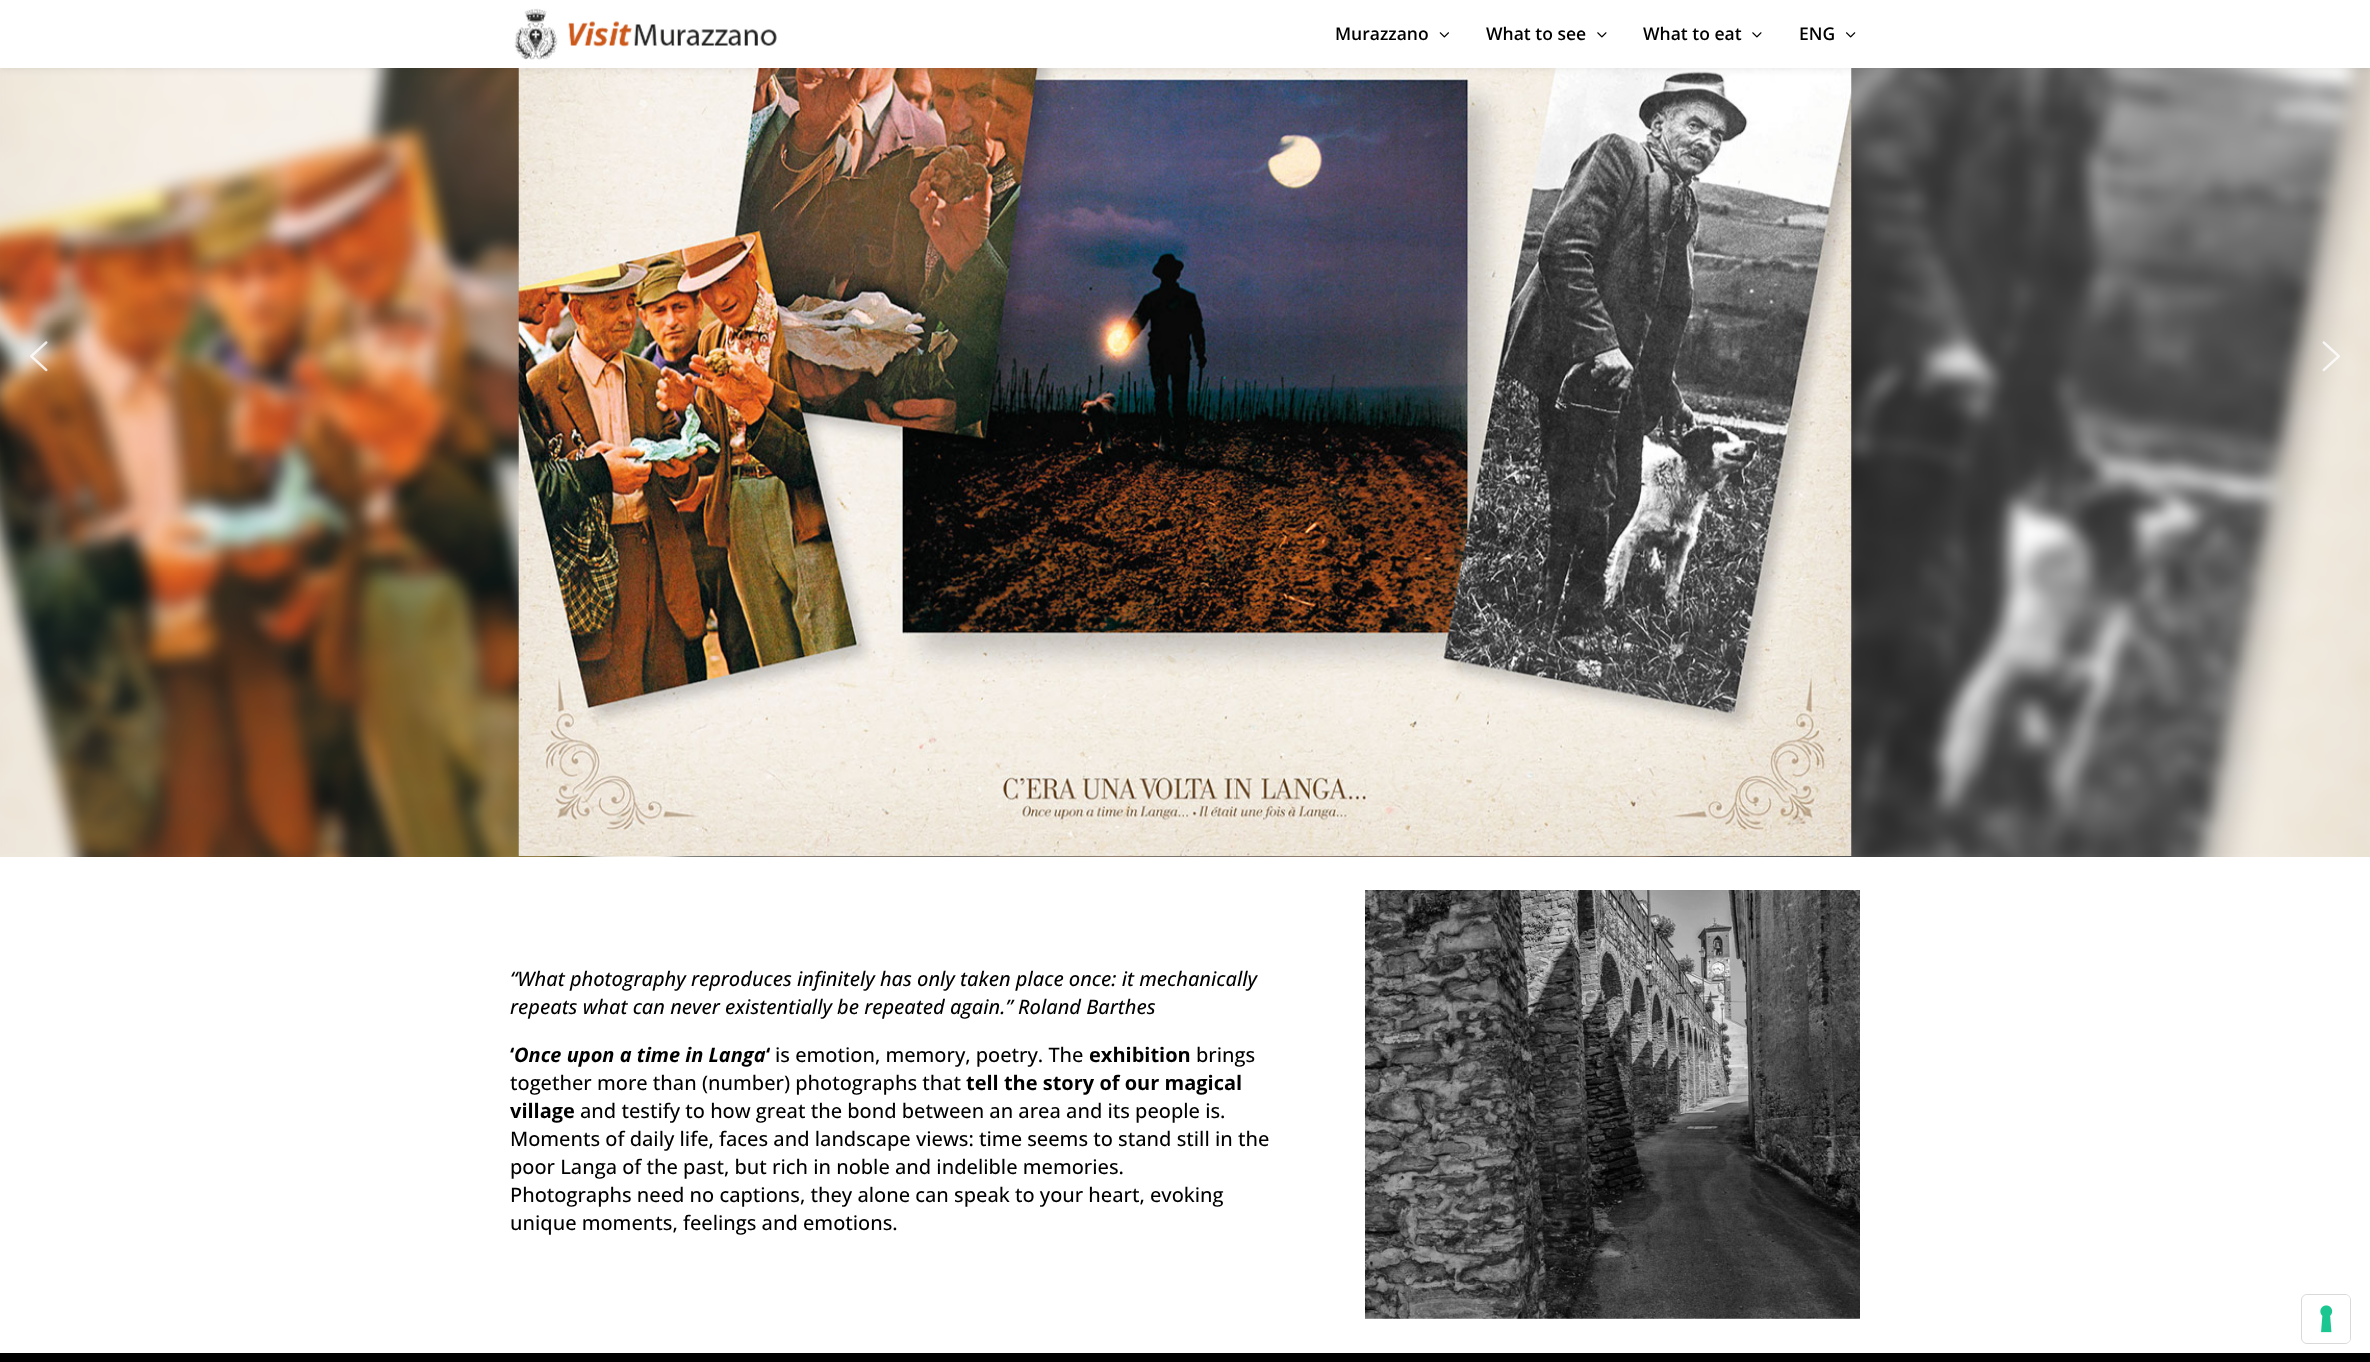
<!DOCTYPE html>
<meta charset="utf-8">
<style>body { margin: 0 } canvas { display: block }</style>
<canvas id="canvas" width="2370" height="1362"></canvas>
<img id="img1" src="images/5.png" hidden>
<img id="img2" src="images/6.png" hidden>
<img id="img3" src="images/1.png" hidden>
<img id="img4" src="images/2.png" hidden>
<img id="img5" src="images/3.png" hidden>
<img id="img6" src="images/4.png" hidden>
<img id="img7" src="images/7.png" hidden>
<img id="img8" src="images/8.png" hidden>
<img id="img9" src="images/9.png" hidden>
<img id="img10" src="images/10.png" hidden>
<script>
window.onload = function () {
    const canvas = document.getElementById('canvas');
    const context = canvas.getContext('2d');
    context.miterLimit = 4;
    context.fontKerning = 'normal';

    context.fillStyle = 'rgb(255, 255, 255)';
    context.fillRect(0, 0, 2370, 1362);
    context.drawImage(document.getElementById('img1'), 0, 68, 2370, 789);
    context.drawImage(document.getElementById('img2'), 518, 68, 1334, 788);
    context.fillStyle = 'rgba(0, 0, 0, 0.1)';
    context.filter = 'blur(4.5px)';
    context.beginPath();
    context.rect(0, 0, 2370, 68);
    context.fill();
    context.filter = 'none';
    context.fillStyle = 'rgb(255, 255, 255)';
    context.fillRect(0, 0, 2370, 68);
    context.drawImage(document.getElementById('img3'), 514, 8, 263, 52);
    context.drawImage(document.getElementById('img4'), 1439, 32, 10, 6);
    context.drawImage(document.getElementById('img5'), 1597, 32, 10, 6);
    context.drawImage(document.getElementById('img5'), 1752, 32, 10, 6);
    context.drawImage(document.getElementById('img6'), 1846, 32, 10, 6);
    context.drawImage(document.getElementById('img7'), 30, 341, 18, 31);
    context.drawImage(document.getElementById('img8'), 2322, 341, 18, 31);
    context.drawImage(document.getElementById('img9'), 1365, 890, 495, 429);
    context.fillStyle = 'rgb(0, 0, 0)';
    context.fillRect(0, 1353, 2370, 9);
    context.beginPath();
    context.roundRect(2301.5, 1294.5, 49, 49, 5.5);
    context.strokeStyle = 'rgb(217, 217, 217)';
    context.stroke();
    context.fillStyle = 'rgb(255, 255, 255)';
    context.beginPath();
    context.roundRect(2303, 1295, 47, 48, 5);
    context.fill();
    context.drawImage(document.getElementById('img10'), 2320, 1305, 13, 28);
    context.font = '600 17.5px Open Sans';
    context.fillStyle = 'rgb(0, 0, 0)';
    context.fillText('Murazzano', 1335, 40);
    context.fillText('What to see', 1486, 40);
    context.fillText('What to eat', 1643, 40);
    context.fillText('ENG', 1799, 40);
    context.font = 'italic 500 20px Open Sans';
    context.fillText('“What photography reproduces infinitely has only taken place once: it mechanically', 510, 986);
    context.fillText('repeats what can never existentially be repeated again.” Roland Barthes', 510, 1014);
    context.font = 'bold 20px Open Sans';
    context.fillText('‘', 510, 1062);
    context.font = 'italic bold 20px Open Sans';
    context.fillText('Once upon a time in Langa', 514, 1062);
    context.font = 'bold 20px Open Sans';
    context.fillText('‘', 766, 1062);
    context.font = '500 20px Open Sans';
    context.fillText('is emotion, memory, poetry. The', 775, 1062);
    context.font = 'bold 20px Open Sans';
    context.fillText('exhibition', 1089, 1062);
    context.font = '500 20px Open Sans';
    context.fillText('brings', 1196, 1062);
    context.fillText('together more than (number) photographs that', 510, 1090);
    context.font = 'bold 20px Open Sans';
    context.fillText('tell the story of our magical', 966, 1090);
    context.fillText('village', 510, 1118);
    context.font = '500 20px Open Sans';
    context.fillText('and testify to how great the bond between an area and its people is.', 580, 1118);
    context.fillText('Moments of daily life, faces and landscape views: time seems to stand still in the', 510, 1146);
    context.fillText('poor Langa of the past, but rich in noble and indelible memories.', 510, 1174);
    context.fillText('Photographs need no captions, they alone can speak to your heart, evoking', 510, 1202);
    context.fillText('unique moments, feelings and emotions.', 510, 1230);
};
</script>
